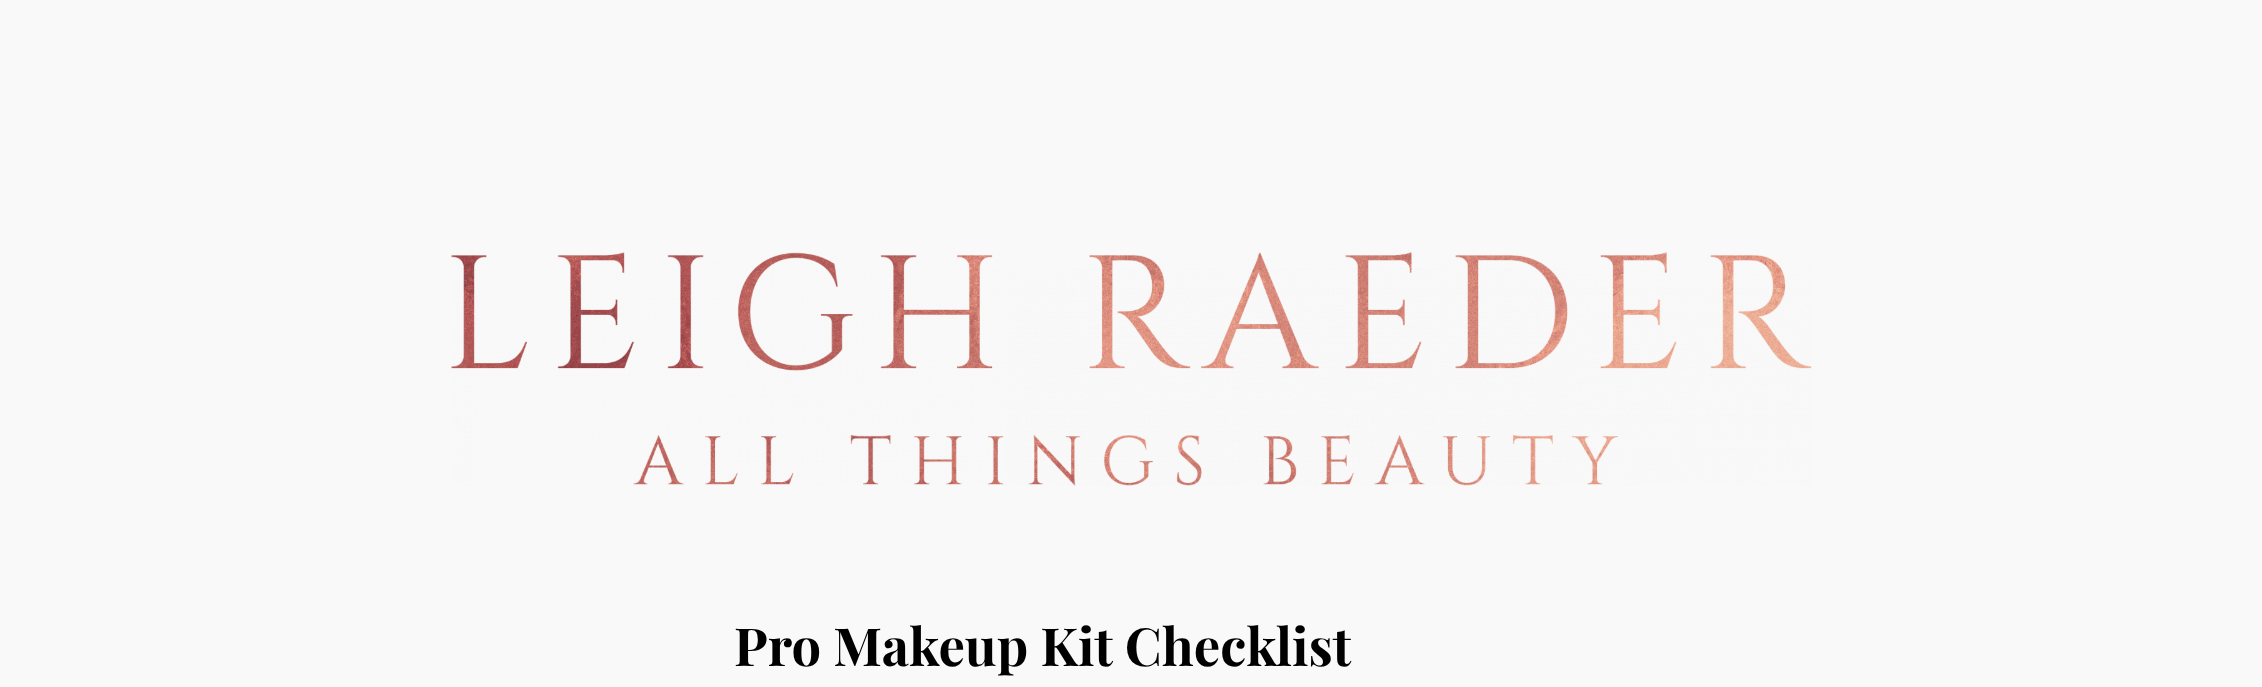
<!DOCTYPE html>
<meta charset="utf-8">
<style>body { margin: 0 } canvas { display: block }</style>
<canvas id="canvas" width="2262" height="687"></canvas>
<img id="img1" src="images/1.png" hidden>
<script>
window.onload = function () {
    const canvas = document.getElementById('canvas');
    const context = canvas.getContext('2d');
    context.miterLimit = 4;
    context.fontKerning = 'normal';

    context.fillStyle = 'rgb(249, 249, 249)';
    context.fillRect(0, 0, 2262, 687);
    context.drawImage(document.getElementById('img1'), 451, 252, 1361, 234);
    context.font = 'bold 52.5px Playfair Display';
    context.fillStyle = 'rgb(0, 0, 0)';
    context.fillText('Pro Makeup Kit Checklist', 734, 666);
};
</script>
